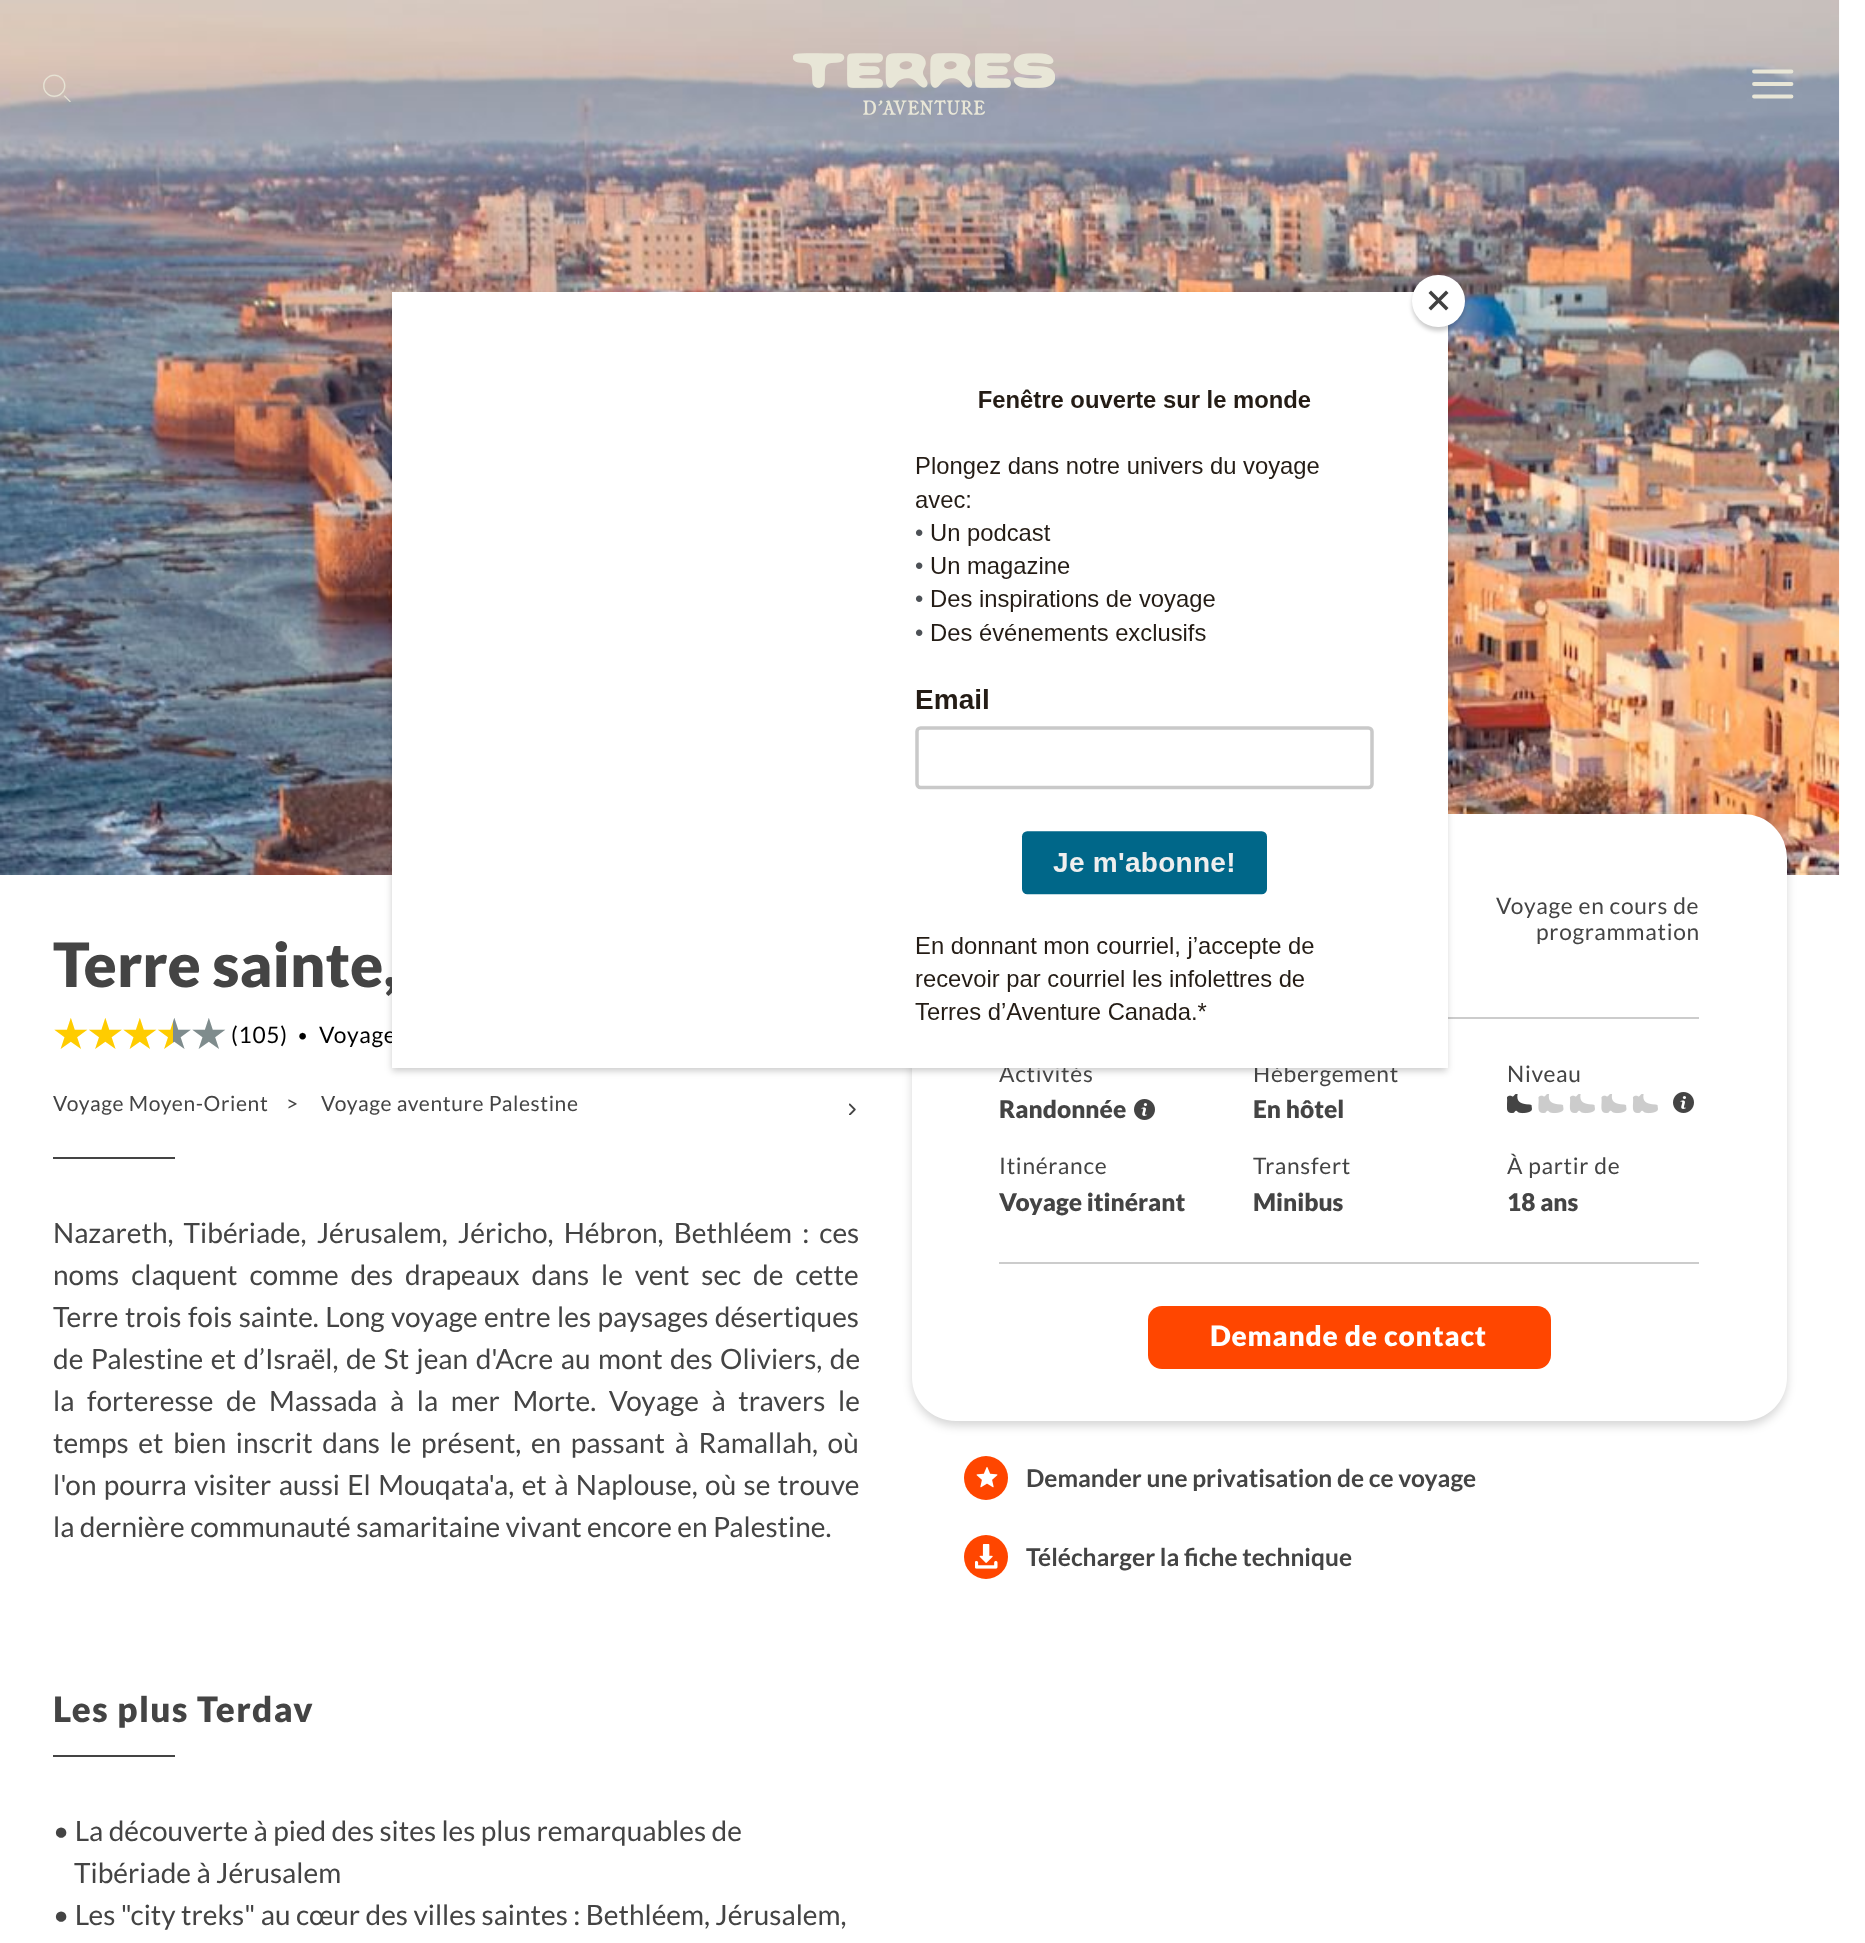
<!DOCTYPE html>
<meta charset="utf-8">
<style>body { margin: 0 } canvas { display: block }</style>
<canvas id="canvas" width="1865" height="1943"></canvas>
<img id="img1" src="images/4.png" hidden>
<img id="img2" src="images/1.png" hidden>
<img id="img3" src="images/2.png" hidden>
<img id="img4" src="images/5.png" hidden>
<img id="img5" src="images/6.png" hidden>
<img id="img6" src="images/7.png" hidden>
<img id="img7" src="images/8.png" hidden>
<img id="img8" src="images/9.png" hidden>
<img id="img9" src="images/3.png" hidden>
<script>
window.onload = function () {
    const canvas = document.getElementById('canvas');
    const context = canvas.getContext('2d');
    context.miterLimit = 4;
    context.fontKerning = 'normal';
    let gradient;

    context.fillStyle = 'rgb(255, 255, 255)';
    context.fillRect(0, 0, 1865, 1943);
    context.drawImage(document.getElementById('img1'), 0, 0, 1840, 875);
    context.drawImage(document.getElementById('img2'), 43, 74, 28, 28);
    context.drawImage(document.getElementById('img3'), 793, 53, 262, 62);
    context.beginPath();
    context.moveTo(1754, 71.5);
    context.lineTo(1791.5, 71.5);
    context.moveTo(1754, 84);
    context.lineTo(1791.5, 84);
    context.moveTo(1754, 96.5);
    context.lineTo(1791.5, 96.5);
    context.strokeStyle = 'rgb(232, 230, 215)';
    context.lineWidth = 3.8;
    context.lineCap = 'round';
    context.stroke();
    context.beginPath();
    context.roundRect(912, 814, 875, 765, [44, 44, 0, 0]);
    context.fill();
    context.save();
    context.beginPath();
    context.moveTo(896, 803);
    context.lineTo(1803, 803);
    context.lineTo(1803, 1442);
    context.lineTo(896, 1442);
    context.closePath();
    context.moveTo(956, 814);
    context.lineTo(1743, 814);
    context.bezierCurveTo(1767.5, 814, 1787, 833.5, 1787, 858);
    context.lineTo(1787, 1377);
    context.bezierCurveTo(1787, 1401.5, 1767.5, 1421, 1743, 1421);
    context.lineTo(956, 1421);
    context.bezierCurveTo(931.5, 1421, 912, 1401.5, 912, 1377);
    context.lineTo(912, 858);
    context.bezierCurveTo(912, 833.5, 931.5, 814, 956, 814);
    context.closePath();
    context.clip('evenodd');
    context.fillStyle = 'rgba(0, 0, 0, 0.16)';
    context.filter = 'blur(5px)';
    context.beginPath();
    context.roundRect(912, 819, 875, 607, 44);
    context.fill();
    context.filter = 'none';
    context.restore();
    context.fillStyle = 'rgb(204, 204, 204)';
    context.fillRect(1448, 1017, 251, 2);
    context.fillStyle = 'rgba(0, 0, 0, 0.2)';
    context.filter = 'blur(3.5px)';
    context.beginPath();
    context.rect(392, 296, 1055, 775);
    context.fill();
    context.filter = 'none';
    context.drawImage(document.getElementById('img4'), 849, 1103, 7, 12);
    context.fillStyle = 'rgb(68, 68, 68)';
    context.fillRect(53, 1157, 122, 2);
    context.fillRect(53, 1755, 122, 2);
    context.fillStyle = 'rgb(204, 204, 204)';
    context.fillRect(999, 1262, 700, 2);
    context.drawImage(document.getElementById('img5'), 1134, 1099, 21, 21);
    context.drawImage(document.getElementById('img6'), 1507, 1094, 151, 20);
    context.drawImage(document.getElementById('img5'), 1673, 1092, 21, 21);
    context.fillStyle = 'rgb(255, 70, 0)';
    context.beginPath();
    context.roundRect(1148, 1306, 403, 63, 14);
    context.fill();
    context.beginPath();
    context.arc(986, 1478, 22, 0, 2 * Math.PI);
    context.fill();
    context.drawImage(document.getElementById('img7'), 976, 1467, 22, 21);
    context.beginPath();
    context.arc(986, 1557, 22, 0, 2 * Math.PI);
    context.fill();
    context.drawImage(document.getElementById('img8'), 975, 1544, 23, 25);
    context.font = '900 61.25px Lato';
    context.fillStyle = 'rgb(68, 68, 68)';
    context.fillText('Terre sainte,', 53, 987);
    context.font = 'bold 38.5px DejaVu Sans';
    gradient = context.createLinearGradient(53, 1035, 225, 1035);
    gradient.addColorStop(0.7, 'rgb(255, 204, 0)');
    gradient.addColorStop(0.7, 'rgb(127, 140, 141)');
    context.fillStyle = gradient;
    context.fillText('★★★★★', 53, 1048);
    context.letterSpacing = '0.7px';
    context.font = '22.75px Lato';
    context.fillStyle = 'rgb(0, 0, 0)';
    context.fillText('(105)', 231, 1043);
    context.font = '300 22.75px Lato';
    context.fillText('•', 296, 1043);
    context.font = '22.75px Lato';
    context.fillText('Voyage', 319, 1043);
    context.letterSpacing = '0.6px';
    context.font = '21px Lato';
    context.fillStyle = 'rgb(68, 68, 68)';
    context.fillText('Voyage Moyen-Orient', 53, 1111);
    context.fillText('>', 286, 1111);
    context.fillText('Voyage aventure Palestine', 321, 1111);
    context.letterSpacing = '0px';
    context.wordSpacing = '4.75px';
    context.font = '28px Lato';
    context.fillText('Nazareth, Tibériade, Jérusalem, Jéricho, Hébron, Bethléem : ces', 53, 1243);
    context.wordSpacing = '6.5px';
    context.fillText('noms claquent comme des drapeaux dans le vent sec de cette', 53, 1285);
    context.wordSpacing = '1px';
    context.fillText('Terre trois fois sainte. Long voyage entre les paysages désertiques', 53, 1327);
    context.wordSpacing = '2.1px';
    context.fillText('de Palestine et d’Israël, de St jean d\'Acre au mont des Oliviers, de', 53, 1369);
    context.wordSpacing = '7.25px';
    context.fillText('la forteresse de Massada à la mer Morte. Voyage à travers le', 53, 1411);
    context.wordSpacing = '4.25px';
    context.fillText('temps et bien inscrit dans le présent, en passant à Ramallah, où', 53, 1453);
    context.wordSpacing = '2px';
    context.fillText('l\'on pourra visiter aussi El Mouqata\'a, et à Naplouse, où se trouve', 53, 1495);
    context.wordSpacing = '0px';
    context.fillText('la dernière communauté samaritaine vivant encore en Palestine.', 53, 1537);
    context.letterSpacing = '1.4px';
    context.font = '900 35px Lato';
    context.fillText('Les plus Terdav', 53, 1722);
    context.letterSpacing = '0px';
    context.font = '28px Lato';
    context.fillText('• La découverte à pied des sites les plus remarquables de', 53, 1841);
    context.fillText('Tibériade à Jérusalem', 74, 1883);
    context.fillText('• Les "city treks" au cœur des villes saintes : Bethléem, Jérusalem,', 53, 1925);
    context.letterSpacing = '0.7px';
    context.font = '22.75px Lato';
    context.fillText('Voyage en cours de', 1496, 914);
    context.fillText('programmation', 1536, 940);
    context.fillText('Activités', 999, 1082);
    context.fillText('Hébergement', 1253, 1082);
    context.drawImage(document.getElementById('img9'), 392, 292, 1056, 776);
    context.fillStyle = 'rgba(0, 0, 0, 0.2)';
    context.filter = 'blur(2px)';
    context.beginPath();
    context.roundRect(1412, 278, 53, 53, 26.5);
    context.fill();
    context.filter = 'none';
    context.fillStyle = 'rgb(255, 255, 255)';
    context.beginPath();
    context.roundRect(1412, 275, 53, 52, 26);
    context.fill();
    context.fillStyle = 'rgb(65, 65, 65)';
    context.beginPath();
    context.moveTo(1446, 290.5);
    context.lineTo(1448.5, 293);
    context.lineTo(1431, 310.5);
    context.lineTo(1428.5, 308);
    context.closePath();
    context.fill();
    context.beginPath();
    context.moveTo(1428.5, 293);
    context.lineTo(1431, 290.5);
    context.lineTo(1448.5, 308);
    context.lineTo(1446, 310.5);
    context.closePath();
    context.fill();
    context.fillStyle = 'rgb(68, 68, 68)';
    context.fillText('Niveau', 1507, 1082);
    context.letterSpacing = '0px';
    context.font = '900 24.5px Lato';
    context.fillText('Randonnée', 999, 1118);
    context.fillText('En hôtel', 1253, 1118);
    context.letterSpacing = '0.7px';
    context.font = '22.75px Lato';
    context.fillText('Itinérance', 999, 1174);
    context.fillText('Transfert', 1253, 1174);
    context.fillText('À partir de', 1507, 1174);
    context.letterSpacing = '0px';
    context.font = '900 24.5px Lato';
    context.fillText('Voyage itinérant', 999, 1211);
    context.fillText('Minibus', 1253, 1211);
    context.fillText('18 ans', 1507, 1211);
    context.letterSpacing = '0.8px';
    context.font = '900 28px Lato';
    context.fillStyle = 'rgb(255, 255, 255)';
    context.fillText('Demande de contact', 1210, 1346);
    context.letterSpacing = '0px';
    context.font = 'bold 24.5px Lato';
    context.fillStyle = 'rgb(68, 68, 68)';
    context.fillText('Demander une privatisation de ce voyage', 1026, 1487);
    context.fillText('Télécharger la fiche technique', 1026, 1566);
};
</script>
